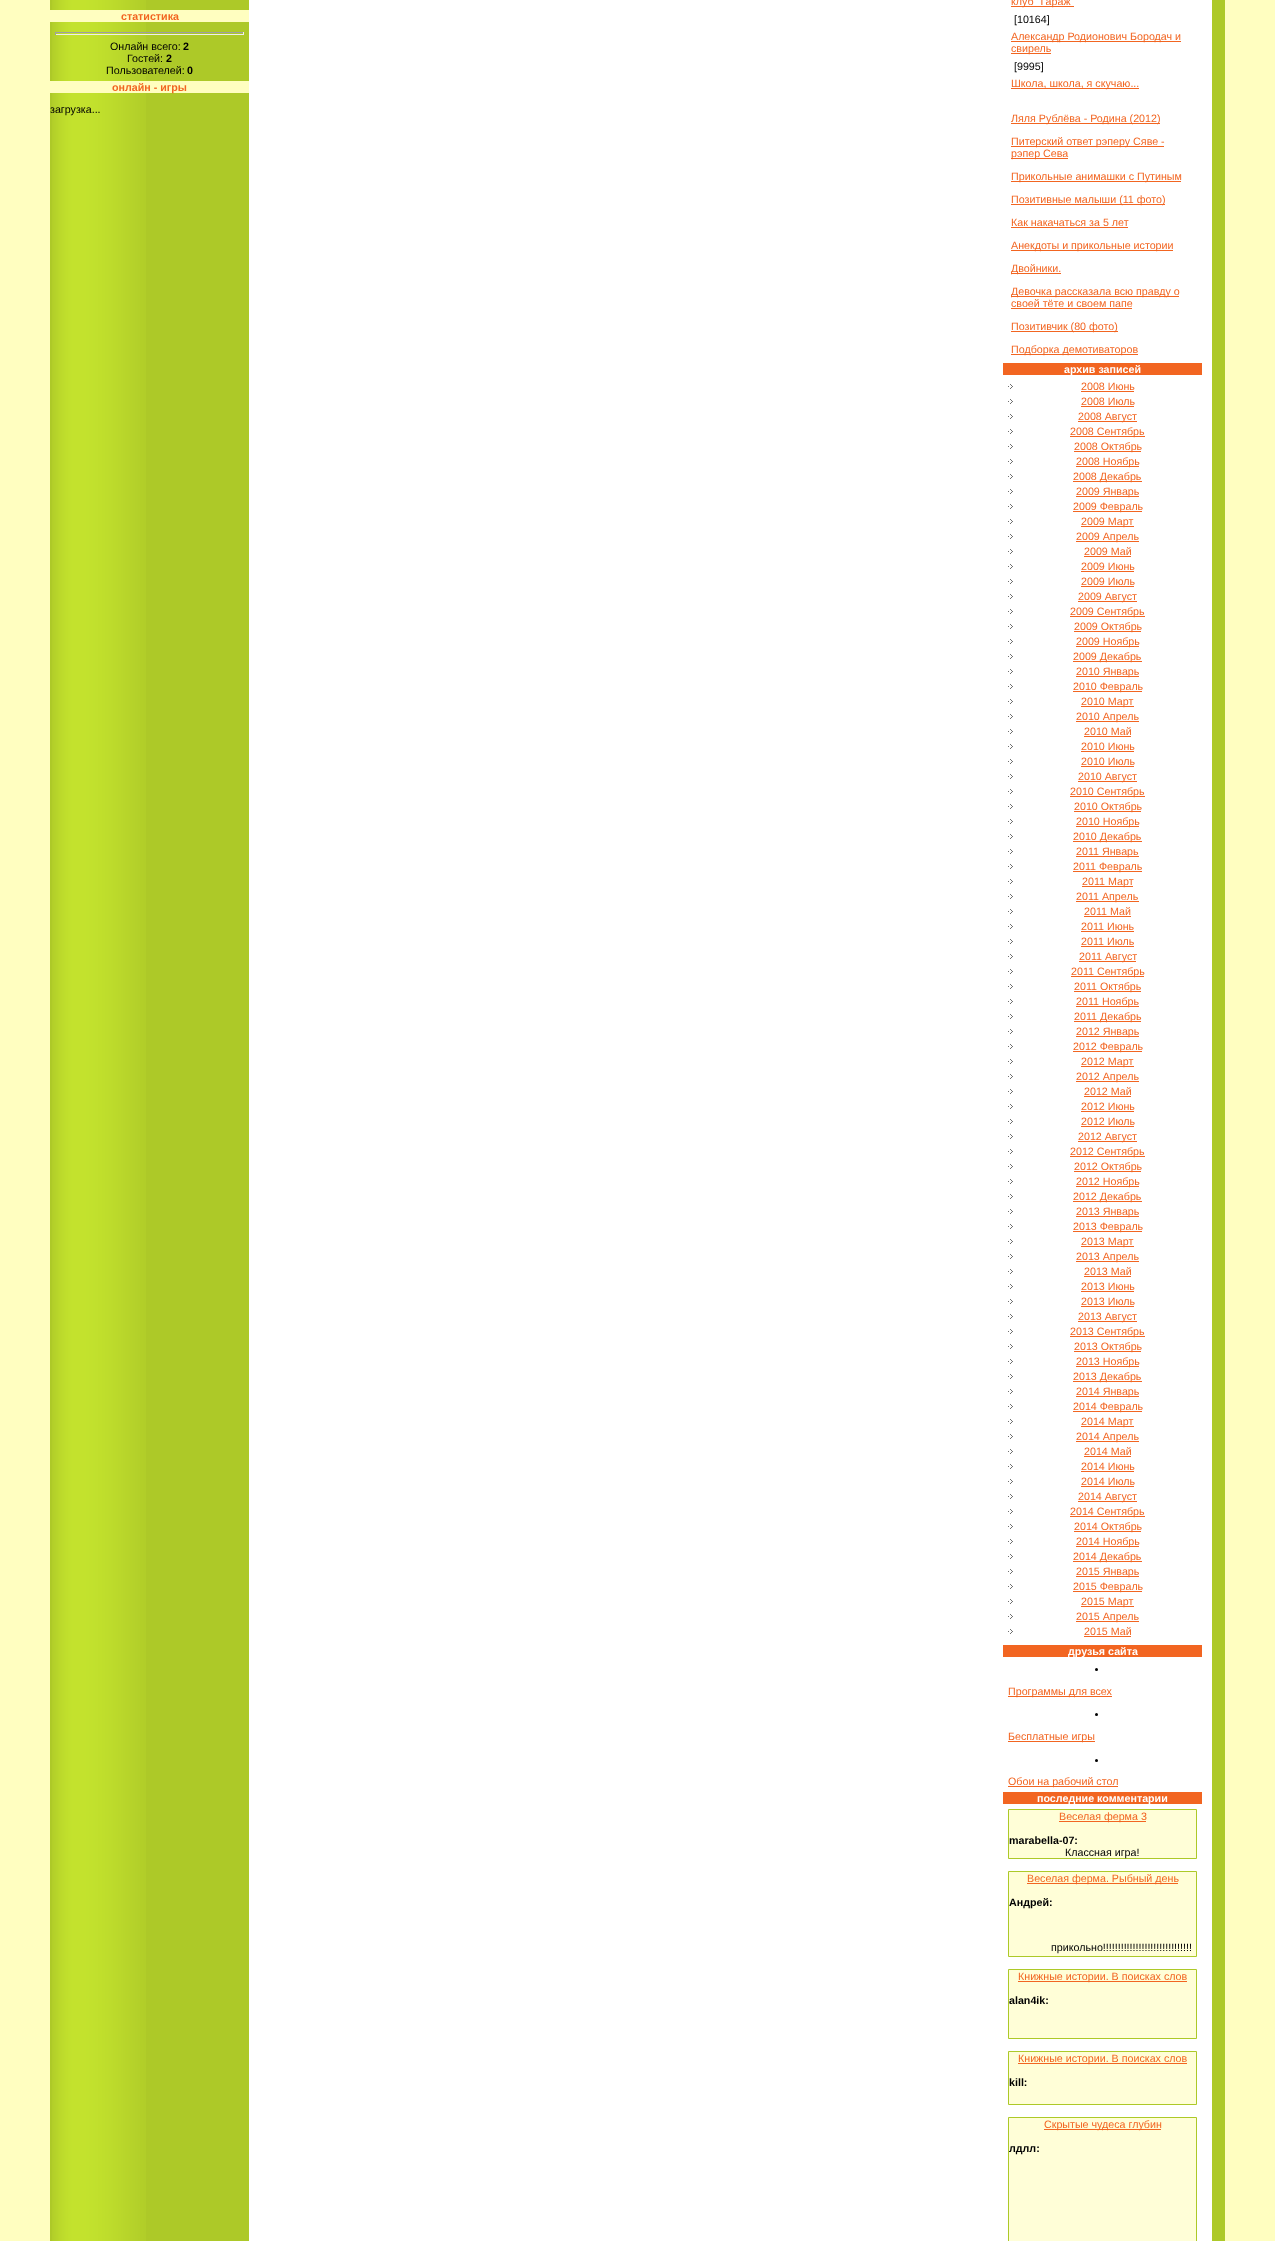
<!DOCTYPE html>
<meta charset="utf-8">
<style>body { margin: 0 } canvas { display: block }</style>
<canvas id="canvas" width="1275" height="2241"></canvas>
<img id="img1" src="images/1.png" hidden>
<img id="img2" src="images/2.png" hidden>
<script>
window.onload = function () {
    const canvas = document.getElementById('canvas');
    const context = canvas.getContext('2d');
    context.miterLimit = 4;
    context.fontKerning = 'normal';

    context.fillStyle = 'rgb(255, 254, 192)';
    context.fillRect(0, 0, 1275, 2241);
    context.fillStyle = 'rgb(173, 201, 40)';
    context.fillRect(50, 0, 199, 2241);
    context.drawImage(document.getElementById('img1'), 52, 0, 94, 2241);
    context.fillStyle = 'rgb(255, 254, 192)';
    context.fillRect(50, 10, 199, 12);
    context.fillStyle = 'rgb(159, 159, 159)';
    context.fillRect(55, 32, 189, 1);
    context.fillStyle = 'rgb(238, 238, 238)';
    context.fillRect(243, 32, 1, 3);
    context.fillRect(55, 34, 189, 1);
    context.fillStyle = 'rgb(159, 159, 159)';
    context.fillRect(55, 32, 1, 3);
    context.fillStyle = 'rgb(255, 254, 192)';
    context.fillRect(50, 81, 199, 12);
    context.fillStyle = 'rgb(255, 255, 255)';
    context.fillRect(249, 0, 963, 2241);
    context.fillStyle = 'rgb(173, 201, 40)';
    context.fillRect(1212, 0, 13, 2241);
    context.fillStyle = 'rgb(242, 101, 33)';
    context.fillRect(1011, 6, 63, 1);
    context.fillRect(1011, 41, 170, 1);
    context.fillRect(1011, 53, 40, 1);
    context.fillRect(1011, 88, 128, 1);
    context.fillRect(1011, 123, 149, 1);
    context.fillRect(1011, 146, 153, 1);
    context.fillRect(1011, 158, 57, 1);
    context.fillRect(1011, 181, 170, 1);
    context.fillRect(1011, 204, 154, 1);
    context.fillRect(1011, 227, 117, 1);
    context.fillRect(1011, 250, 162, 1);
    context.fillRect(1011, 273, 50, 1);
    context.fillRect(1011, 296, 168, 1);
    context.fillRect(1011, 308, 121, 1);
    context.fillRect(1011, 331, 107, 1);
    context.fillRect(1011, 354, 127, 1);
    context.fillRect(1003, 363, 199, 12);
    context.drawImage(document.getElementById('img2'), 1008, 384, 5, 5);
    context.fillRect(1081, 391, 53, 1);
    context.drawImage(document.getElementById('img2'), 1008, 399, 5, 5);
    context.fillRect(1081, 406, 53, 1);
    context.drawImage(document.getElementById('img2'), 1008, 414, 5, 5);
    context.fillRect(1078, 421, 59, 1);
    context.drawImage(document.getElementById('img2'), 1008, 429, 5, 5);
    context.fillRect(1070, 436, 75, 1);
    context.drawImage(document.getElementById('img2'), 1008, 444, 5, 5);
    context.fillRect(1074, 451, 67, 1);
    context.drawImage(document.getElementById('img2'), 1008, 459, 5, 5);
    context.fillRect(1076, 466, 63, 1);
    context.drawImage(document.getElementById('img2'), 1008, 474, 5, 5);
    context.fillRect(1073, 481, 69, 1);
    context.drawImage(document.getElementById('img2'), 1008, 489, 5, 5);
    context.fillRect(1076, 496, 63, 1);
    context.drawImage(document.getElementById('img2'), 1008, 504, 5, 5);
    context.fillRect(1073, 511, 69, 1);
    context.drawImage(document.getElementById('img2'), 1008, 519, 5, 5);
    context.fillRect(1081, 526, 53, 1);
    context.drawImage(document.getElementById('img2'), 1008, 534, 5, 5);
    context.fillRect(1076, 541, 63, 1);
    context.drawImage(document.getElementById('img2'), 1008, 549, 5, 5);
    context.fillRect(1084, 556, 47, 1);
    context.drawImage(document.getElementById('img2'), 1008, 564, 5, 5);
    context.fillRect(1081, 571, 53, 1);
    context.drawImage(document.getElementById('img2'), 1008, 579, 5, 5);
    context.fillRect(1081, 586, 53, 1);
    context.drawImage(document.getElementById('img2'), 1008, 594, 5, 5);
    context.fillRect(1078, 601, 59, 1);
    context.drawImage(document.getElementById('img2'), 1008, 609, 5, 5);
    context.fillRect(1070, 616, 75, 1);
    context.drawImage(document.getElementById('img2'), 1008, 624, 5, 5);
    context.fillRect(1074, 631, 67, 1);
    context.drawImage(document.getElementById('img2'), 1008, 639, 5, 5);
    context.fillRect(1076, 646, 63, 1);
    context.drawImage(document.getElementById('img2'), 1008, 654, 5, 5);
    context.fillRect(1073, 661, 69, 1);
    context.drawImage(document.getElementById('img2'), 1008, 669, 5, 5);
    context.fillRect(1076, 676, 63, 1);
    context.drawImage(document.getElementById('img2'), 1008, 684, 5, 5);
    context.fillRect(1073, 691, 69, 1);
    context.drawImage(document.getElementById('img2'), 1008, 699, 5, 5);
    context.fillRect(1081, 706, 53, 1);
    context.drawImage(document.getElementById('img2'), 1008, 714, 5, 5);
    context.fillRect(1076, 721, 63, 1);
    context.drawImage(document.getElementById('img2'), 1008, 729, 5, 5);
    context.fillRect(1084, 736, 47, 1);
    context.drawImage(document.getElementById('img2'), 1008, 744, 5, 5);
    context.fillRect(1081, 751, 53, 1);
    context.drawImage(document.getElementById('img2'), 1008, 759, 5, 5);
    context.fillRect(1081, 766, 53, 1);
    context.drawImage(document.getElementById('img2'), 1008, 774, 5, 5);
    context.fillRect(1078, 781, 59, 1);
    context.drawImage(document.getElementById('img2'), 1008, 789, 5, 5);
    context.fillRect(1070, 796, 75, 1);
    context.drawImage(document.getElementById('img2'), 1008, 804, 5, 5);
    context.fillRect(1074, 811, 67, 1);
    context.drawImage(document.getElementById('img2'), 1008, 819, 5, 5);
    context.fillRect(1076, 826, 63, 1);
    context.drawImage(document.getElementById('img2'), 1008, 834, 5, 5);
    context.fillRect(1073, 841, 69, 1);
    context.drawImage(document.getElementById('img2'), 1008, 849, 5, 5);
    context.fillRect(1076, 856, 63, 1);
    context.drawImage(document.getElementById('img2'), 1008, 864, 5, 5);
    context.fillRect(1073, 871, 69, 1);
    context.drawImage(document.getElementById('img2'), 1008, 879, 5, 5);
    context.fillRect(1082, 886, 51, 1);
    context.drawImage(document.getElementById('img2'), 1008, 894, 5, 5);
    context.fillRect(1076, 901, 63, 1);
    context.drawImage(document.getElementById('img2'), 1008, 909, 5, 5);
    context.fillRect(1084, 916, 47, 1);
    context.drawImage(document.getElementById('img2'), 1008, 924, 5, 5);
    context.fillRect(1081, 931, 53, 1);
    context.drawImage(document.getElementById('img2'), 1008, 939, 5, 5);
    context.fillRect(1081, 946, 53, 1);
    context.drawImage(document.getElementById('img2'), 1008, 954, 5, 5);
    context.fillRect(1079, 961, 57, 1);
    context.drawImage(document.getElementById('img2'), 1008, 969, 5, 5);
    context.fillRect(1071, 976, 73, 1);
    context.drawImage(document.getElementById('img2'), 1008, 984, 5, 5);
    context.fillRect(1074, 991, 67, 1);
    context.drawImage(document.getElementById('img2'), 1008, 999, 5, 5);
    context.fillRect(1076, 1006, 63, 1);
    context.drawImage(document.getElementById('img2'), 1008, 1014, 5, 5);
    context.fillRect(1074, 1021, 67, 1);
    context.drawImage(document.getElementById('img2'), 1008, 1029, 5, 5);
    context.fillRect(1076, 1036, 63, 1);
    context.drawImage(document.getElementById('img2'), 1008, 1044, 5, 5);
    context.fillRect(1073, 1051, 69, 1);
    context.drawImage(document.getElementById('img2'), 1008, 1059, 5, 5);
    context.fillRect(1081, 1066, 53, 1);
    context.drawImage(document.getElementById('img2'), 1008, 1074, 5, 5);
    context.fillRect(1076, 1081, 63, 1);
    context.drawImage(document.getElementById('img2'), 1008, 1089, 5, 5);
    context.fillRect(1084, 1096, 47, 1);
    context.drawImage(document.getElementById('img2'), 1008, 1104, 5, 5);
    context.fillRect(1081, 1111, 53, 1);
    context.drawImage(document.getElementById('img2'), 1008, 1119, 5, 5);
    context.fillRect(1081, 1126, 53, 1);
    context.drawImage(document.getElementById('img2'), 1008, 1134, 5, 5);
    context.fillRect(1078, 1141, 59, 1);
    context.drawImage(document.getElementById('img2'), 1008, 1149, 5, 5);
    context.fillRect(1070, 1156, 75, 1);
    context.drawImage(document.getElementById('img2'), 1008, 1164, 5, 5);
    context.fillRect(1074, 1171, 67, 1);
    context.drawImage(document.getElementById('img2'), 1008, 1179, 5, 5);
    context.fillRect(1076, 1186, 63, 1);
    context.drawImage(document.getElementById('img2'), 1008, 1194, 5, 5);
    context.fillRect(1073, 1201, 69, 1);
    context.drawImage(document.getElementById('img2'), 1008, 1209, 5, 5);
    context.fillRect(1076, 1216, 63, 1);
    context.drawImage(document.getElementById('img2'), 1008, 1224, 5, 5);
    context.fillRect(1073, 1231, 69, 1);
    context.drawImage(document.getElementById('img2'), 1008, 1239, 5, 5);
    context.fillRect(1081, 1246, 53, 1);
    context.drawImage(document.getElementById('img2'), 1008, 1254, 5, 5);
    context.fillRect(1076, 1261, 63, 1);
    context.drawImage(document.getElementById('img2'), 1008, 1269, 5, 5);
    context.fillRect(1084, 1276, 47, 1);
    context.drawImage(document.getElementById('img2'), 1008, 1284, 5, 5);
    context.fillRect(1081, 1291, 53, 1);
    context.drawImage(document.getElementById('img2'), 1008, 1299, 5, 5);
    context.fillRect(1081, 1306, 53, 1);
    context.drawImage(document.getElementById('img2'), 1008, 1314, 5, 5);
    context.fillRect(1078, 1321, 59, 1);
    context.drawImage(document.getElementById('img2'), 1008, 1329, 5, 5);
    context.fillRect(1070, 1336, 75, 1);
    context.drawImage(document.getElementById('img2'), 1008, 1344, 5, 5);
    context.fillRect(1074, 1351, 67, 1);
    context.drawImage(document.getElementById('img2'), 1008, 1359, 5, 5);
    context.fillRect(1076, 1366, 63, 1);
    context.drawImage(document.getElementById('img2'), 1008, 1374, 5, 5);
    context.fillRect(1073, 1381, 69, 1);
    context.drawImage(document.getElementById('img2'), 1008, 1389, 5, 5);
    context.fillRect(1076, 1396, 63, 1);
    context.drawImage(document.getElementById('img2'), 1008, 1404, 5, 5);
    context.fillRect(1073, 1411, 69, 1);
    context.drawImage(document.getElementById('img2'), 1008, 1419, 5, 5);
    context.fillRect(1081, 1426, 53, 1);
    context.drawImage(document.getElementById('img2'), 1008, 1434, 5, 5);
    context.fillRect(1076, 1441, 63, 1);
    context.drawImage(document.getElementById('img2'), 1008, 1449, 5, 5);
    context.fillRect(1084, 1456, 47, 1);
    context.drawImage(document.getElementById('img2'), 1008, 1464, 5, 5);
    context.fillRect(1081, 1471, 53, 1);
    context.drawImage(document.getElementById('img2'), 1008, 1479, 5, 5);
    context.fillRect(1081, 1486, 53, 1);
    context.drawImage(document.getElementById('img2'), 1008, 1494, 5, 5);
    context.fillRect(1078, 1501, 59, 1);
    context.drawImage(document.getElementById('img2'), 1008, 1509, 5, 5);
    context.fillRect(1070, 1516, 75, 1);
    context.drawImage(document.getElementById('img2'), 1008, 1524, 5, 5);
    context.fillRect(1074, 1531, 67, 1);
    context.drawImage(document.getElementById('img2'), 1008, 1539, 5, 5);
    context.fillRect(1076, 1546, 63, 1);
    context.drawImage(document.getElementById('img2'), 1008, 1554, 5, 5);
    context.fillRect(1073, 1561, 69, 1);
    context.drawImage(document.getElementById('img2'), 1008, 1569, 5, 5);
    context.fillRect(1076, 1576, 63, 1);
    context.drawImage(document.getElementById('img2'), 1008, 1584, 5, 5);
    context.fillRect(1073, 1591, 69, 1);
    context.drawImage(document.getElementById('img2'), 1008, 1599, 5, 5);
    context.fillRect(1081, 1606, 53, 1);
    context.drawImage(document.getElementById('img2'), 1008, 1614, 5, 5);
    context.fillRect(1076, 1621, 63, 1);
    context.drawImage(document.getElementById('img2'), 1008, 1629, 5, 5);
    context.fillRect(1084, 1636, 47, 1);
    context.fillRect(1003, 1645, 199, 12);
    context.fillStyle = 'rgb(0, 0, 0)';
    context.beginPath();
    context.arc(1096.5, 1669.5, 1.5, 0, 2 * Math.PI);
    context.fill();
    context.fillStyle = 'rgb(242, 101, 33)';
    context.fillRect(1008, 1696, 104, 1);
    context.fillStyle = 'rgb(0, 0, 0)';
    context.beginPath();
    context.arc(1096.5, 1714.5, 1.5, 0, 2 * Math.PI);
    context.fill();
    context.fillStyle = 'rgb(242, 101, 33)';
    context.fillRect(1008, 1741, 87, 1);
    context.fillStyle = 'rgb(0, 0, 0)';
    context.beginPath();
    context.arc(1096.5, 1760.5, 1.5, 0, 2 * Math.PI);
    context.fill();
    context.fillStyle = 'rgb(242, 101, 33)';
    context.fillRect(1008, 1786, 110, 1);
    context.fillRect(1003, 1792, 199, 12);
    context.fillStyle = 'rgb(255, 254, 215)';
    context.beginPath();
    context.rect(1008.5, 1809.5, 188, 49);
    context.fill();
    context.strokeStyle = 'rgb(173, 201, 40)';
    context.stroke();
    context.fillStyle = 'rgb(242, 101, 33)';
    context.fillRect(1059, 1821, 87, 1);
    context.fillStyle = 'rgb(255, 254, 215)';
    context.beginPath();
    context.rect(1008.5, 1871.5, 188, 85);
    context.fill();
    context.stroke();
    context.fillStyle = 'rgb(242, 101, 33)';
    context.fillRect(1027, 1883, 151, 1);
    context.fillStyle = 'rgb(255, 254, 215)';
    context.beginPath();
    context.rect(1008.5, 1969.5, 188, 69);
    context.fill();
    context.stroke();
    context.fillStyle = 'rgb(242, 101, 33)';
    context.fillRect(1018, 1981, 169, 1);
    context.fillStyle = 'rgb(255, 254, 215)';
    context.beginPath();
    context.rect(1008.5, 2051.5, 188, 53);
    context.fill();
    context.stroke();
    context.fillStyle = 'rgb(242, 101, 33)';
    context.fillRect(1018, 2063, 169, 1);
    context.fillStyle = 'rgb(255, 254, 215)';
    context.beginPath();
    context.rect(1008.5, 2117.5, 188, 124);
    context.fill();
    context.stroke();
    context.fillStyle = 'rgb(242, 101, 33)';
    context.fillRect(1044, 2129, 117, 1);
    context.font = 'bold 10.7px Liberation Sans';
    context.fillText('статистика', 121, 20);
    context.font = '10.7px Liberation Sans';
    context.fillStyle = 'rgb(0, 0, 0)';
    context.fillText('Онлайн всего:', 110, 50);
    context.font = 'bold 10.7px Liberation Sans';
    context.fillText('2', 183, 50);
    context.font = '10.7px Liberation Sans';
    context.fillText('Гостей:', 127, 62);
    context.font = 'bold 10.7px Liberation Sans';
    context.fillText('2', 166, 62);
    context.font = '10.7px Liberation Sans';
    context.fillText('Пользователей:', 106, 74);
    context.font = 'bold 10.7px Liberation Sans';
    context.fillText('0', 187, 74);
    context.fillStyle = 'rgb(242, 101, 33)';
    context.fillText('онлайн - игры', 112, 91);
    context.font = '10.7px Liberation Sans';
    context.fillStyle = 'rgb(0, 0, 0)';
    context.fillText('загрузка...', 50, 113);
    context.fillStyle = 'rgb(242, 101, 33)';
    context.fillText('клуб "Гараж', 1011, 5);
    context.fillStyle = 'rgb(0, 0, 0)';
    context.fillText('[10164]', 1014, 23);
    context.fillStyle = 'rgb(242, 101, 33)';
    context.fillText('Александр Родионович Бородач и', 1011, 40);
    context.fillText('свирель', 1011, 52);
    context.fillStyle = 'rgb(0, 0, 0)';
    context.fillText('[9995]', 1014, 70);
    context.fillStyle = 'rgb(242, 101, 33)';
    context.fillText('Школа, школа, я скучаю...', 1011, 87);
    context.fillText('Ляля Рублёва - Родина (2012)', 1011, 122);
    context.fillText('Питерский ответ рэперу Сяве -', 1011, 145);
    context.fillText('рэпер Сева', 1011, 157);
    context.fillText('Прикольные анимашки с Путиным', 1011, 180);
    context.fillText('Позитивные малыши (11 фото)', 1011, 203);
    context.fillText('Как накачаться за 5 лет', 1011, 226);
    context.fillText('Анекдоты и прикольные истории', 1011, 249);
    context.fillText('Двойники.', 1011, 272);
    context.fillText('Девочка рассказала всю правду о', 1011, 295);
    context.fillText('своей тёте и своем папе', 1011, 307);
    context.fillText('Позитивчик (80 фото)', 1011, 330);
    context.fillText('Подборка демотиваторов', 1011, 353);
    context.font = 'bold 10.7px Liberation Sans';
    context.fillStyle = 'rgb(255, 255, 255)';
    context.fillText('архив записей', 1064, 373);
    context.font = '10.7px Liberation Sans';
    context.fillStyle = 'rgb(242, 101, 33)';
    context.fillText('2008 Июнь', 1081, 390);
    context.fillText('2008 Июль', 1081, 405);
    context.fillText('2008 Август', 1078, 420);
    context.fillText('2008 Сентябрь', 1070, 435);
    context.fillText('2008 Октябрь', 1074, 450);
    context.fillText('2008 Ноябрь', 1076, 465);
    context.fillText('2008 Декабрь', 1073, 480);
    context.fillText('2009 Январь', 1076, 495);
    context.fillText('2009 Февраль', 1073, 510);
    context.fillText('2009 Март', 1081, 525);
    context.fillText('2009 Апрель', 1076, 540);
    context.fillText('2009 Май', 1084, 555);
    context.fillText('2009 Июнь', 1081, 570);
    context.fillText('2009 Июль', 1081, 585);
    context.fillText('2009 Август', 1078, 600);
    context.fillText('2009 Сентябрь', 1070, 615);
    context.fillText('2009 Октябрь', 1074, 630);
    context.fillText('2009 Ноябрь', 1076, 645);
    context.fillText('2009 Декабрь', 1073, 660);
    context.fillText('2010 Январь', 1076, 675);
    context.fillText('2010 Февраль', 1073, 690);
    context.fillText('2010 Март', 1081, 705);
    context.fillText('2010 Апрель', 1076, 720);
    context.fillText('2010 Май', 1084, 735);
    context.fillText('2010 Июнь', 1081, 750);
    context.fillText('2010 Июль', 1081, 765);
    context.fillText('2010 Август', 1078, 780);
    context.fillText('2010 Сентябрь', 1070, 795);
    context.fillText('2010 Октябрь', 1074, 810);
    context.fillText('2010 Ноябрь', 1076, 825);
    context.fillText('2010 Декабрь', 1073, 840);
    context.fillText('2011 Январь', 1076, 855);
    context.fillText('2011 Февраль', 1073, 870);
    context.fillText('2011 Март', 1082, 885);
    context.fillText('2011 Апрель', 1076, 900);
    context.fillText('2011 Май', 1084, 915);
    context.fillText('2011 Июнь', 1081, 930);
    context.fillText('2011 Июль', 1081, 945);
    context.fillText('2011 Август', 1079, 960);
    context.fillText('2011 Сентябрь', 1071, 975);
    context.fillText('2011 Октябрь', 1074, 990);
    context.fillText('2011 Ноябрь', 1076, 1005);
    context.fillText('2011 Декабрь', 1074, 1020);
    context.fillText('2012 Январь', 1076, 1035);
    context.fillText('2012 Февраль', 1073, 1050);
    context.fillText('2012 Март', 1081, 1065);
    context.fillText('2012 Апрель', 1076, 1080);
    context.fillText('2012 Май', 1084, 1095);
    context.fillText('2012 Июнь', 1081, 1110);
    context.fillText('2012 Июль', 1081, 1125);
    context.fillText('2012 Август', 1078, 1140);
    context.fillText('2012 Сентябрь', 1070, 1155);
    context.fillText('2012 Октябрь', 1074, 1170);
    context.fillText('2012 Ноябрь', 1076, 1185);
    context.fillText('2012 Декабрь', 1073, 1200);
    context.fillText('2013 Январь', 1076, 1215);
    context.fillText('2013 Февраль', 1073, 1230);
    context.fillText('2013 Март', 1081, 1245);
    context.fillText('2013 Апрель', 1076, 1260);
    context.fillText('2013 Май', 1084, 1275);
    context.fillText('2013 Июнь', 1081, 1290);
    context.fillText('2013 Июль', 1081, 1305);
    context.fillText('2013 Август', 1078, 1320);
    context.fillText('2013 Сентябрь', 1070, 1335);
    context.fillText('2013 Октябрь', 1074, 1350);
    context.fillText('2013 Ноябрь', 1076, 1365);
    context.fillText('2013 Декабрь', 1073, 1380);
    context.fillText('2014 Январь', 1076, 1395);
    context.fillText('2014 Февраль', 1073, 1410);
    context.fillText('2014 Март', 1081, 1425);
    context.fillText('2014 Апрель', 1076, 1440);
    context.fillText('2014 Май', 1084, 1455);
    context.fillText('2014 Июнь', 1081, 1470);
    context.fillText('2014 Июль', 1081, 1485);
    context.fillText('2014 Август', 1078, 1500);
    context.fillText('2014 Сентябрь', 1070, 1515);
    context.fillText('2014 Октябрь', 1074, 1530);
    context.fillText('2014 Ноябрь', 1076, 1545);
    context.fillText('2014 Декабрь', 1073, 1560);
    context.fillText('2015 Январь', 1076, 1575);
    context.fillText('2015 Февраль', 1073, 1590);
    context.fillText('2015 Март', 1081, 1605);
    context.fillText('2015 Апрель', 1076, 1620);
    context.fillText('2015 Май', 1084, 1635);
    context.font = 'bold 10.7px Liberation Sans';
    context.fillStyle = 'rgb(255, 255, 255)';
    context.fillText('друзья сайта', 1068, 1655);
    context.font = '10.7px Liberation Sans';
    context.fillStyle = 'rgb(242, 101, 33)';
    context.fillText('Программы для всех', 1008, 1695);
    context.fillText('Бесплатные игры', 1008, 1740);
    context.fillText('Обои на рабочий стол', 1008, 1785);
    context.font = 'bold 10.7px Liberation Sans';
    context.fillStyle = 'rgb(255, 255, 255)';
    context.fillText('последние комментарии', 1037, 1802);
    context.font = '10.7px Liberation Sans';
    context.fillStyle = 'rgb(242, 101, 33)';
    context.fillText('Веселая ферма 3', 1059, 1820);
    context.font = 'bold 10.7px Liberation Sans';
    context.fillStyle = 'rgb(0, 0, 0)';
    context.fillText('marabella-07:', 1009, 1844);
    context.font = '10.7px Liberation Sans';
    context.fillText('Классная игра!', 1065, 1856);
    context.fillStyle = 'rgb(242, 101, 33)';
    context.fillText('Веселая ферма. Рыбный день', 1027, 1882);
    context.font = 'bold 10.7px Liberation Sans';
    context.fillStyle = 'rgb(0, 0, 0)';
    context.fillText('Андрей:', 1009, 1906);
    context.font = '10.7px Liberation Sans';
    context.fillText('прикольно!!!!!!!!!!!!!!!!!!!!!!!!!!!!!!', 1051, 1951);
    context.fillStyle = 'rgb(242, 101, 33)';
    context.fillText('Книжные истории. В поисках слов', 1018, 1980);
    context.font = 'bold 10.7px Liberation Sans';
    context.fillStyle = 'rgb(0, 0, 0)';
    context.fillText('alan4ik:', 1009, 2004);
    context.font = '10.7px Liberation Sans';
    context.fillStyle = 'rgb(242, 101, 33)';
    context.fillText('Книжные истории. В поисках слов', 1018, 2062);
    context.font = 'bold 10.7px Liberation Sans';
    context.fillStyle = 'rgb(0, 0, 0)';
    context.fillText('kill:', 1009, 2086);
    context.font = '10.7px Liberation Sans';
    context.fillStyle = 'rgb(242, 101, 33)';
    context.fillText('Скрытые чудеса глубин', 1044, 2128);
    context.font = 'bold 10.7px Liberation Sans';
    context.fillStyle = 'rgb(0, 0, 0)';
    context.fillText('лдлл:', 1009, 2152);
};
</script>
